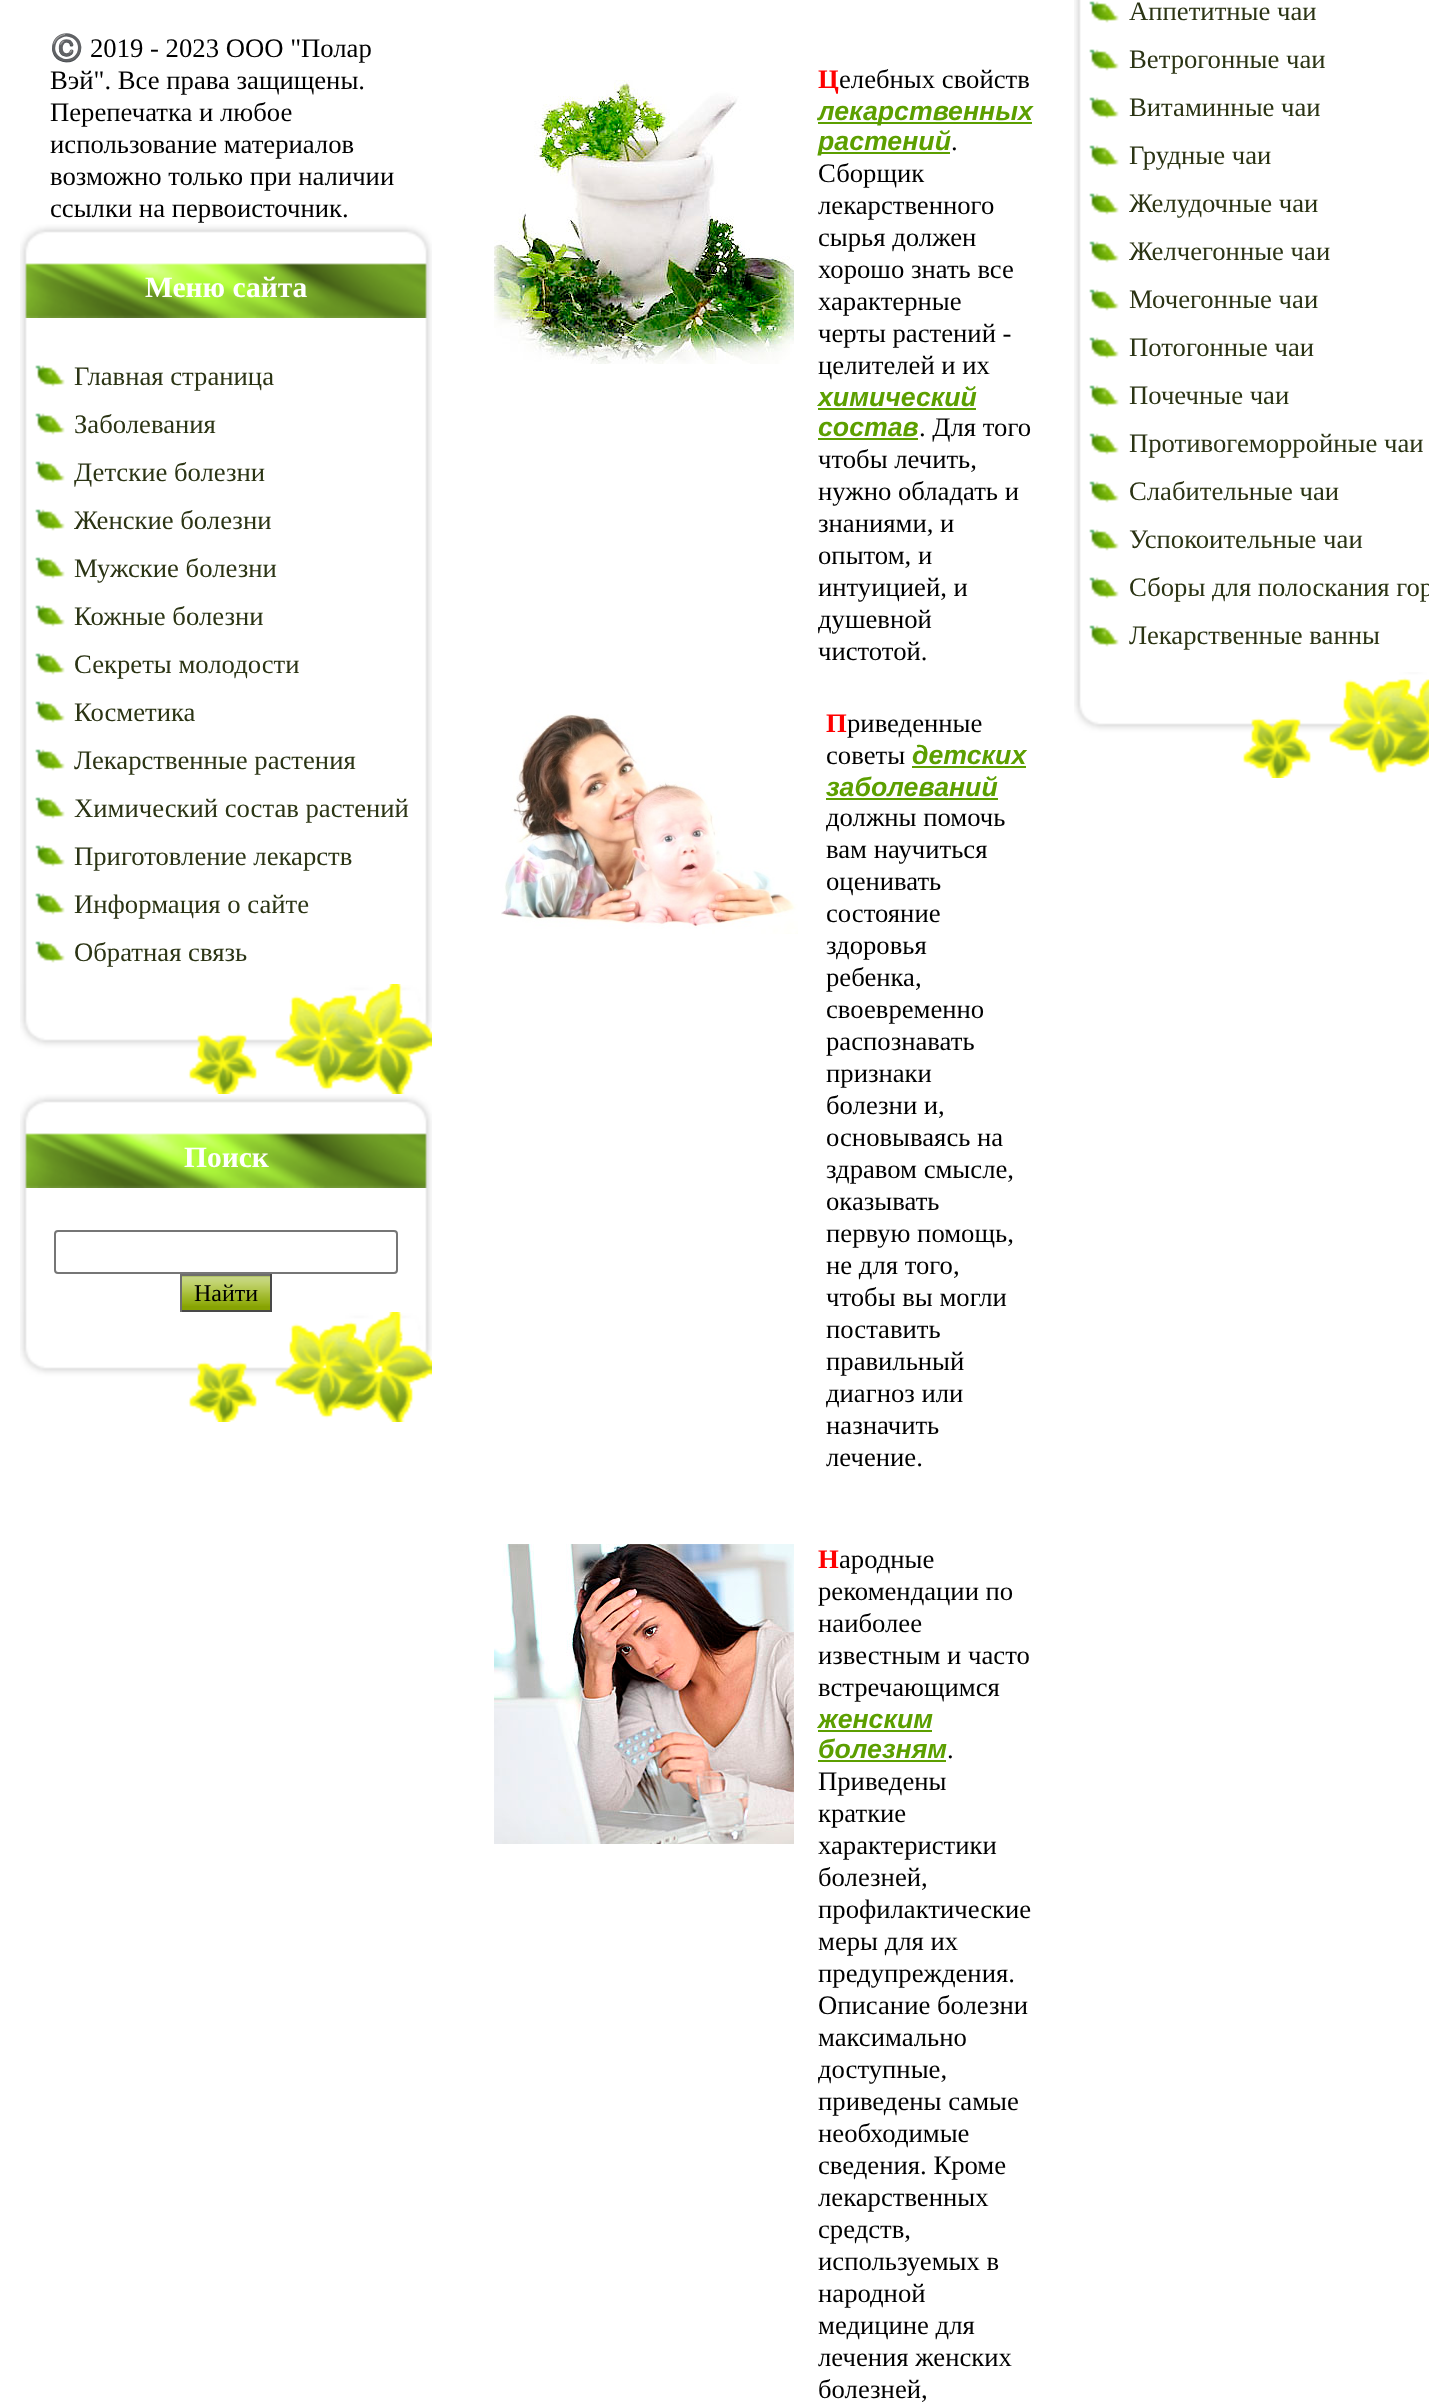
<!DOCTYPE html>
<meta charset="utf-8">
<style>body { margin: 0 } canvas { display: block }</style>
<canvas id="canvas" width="1429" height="2402"></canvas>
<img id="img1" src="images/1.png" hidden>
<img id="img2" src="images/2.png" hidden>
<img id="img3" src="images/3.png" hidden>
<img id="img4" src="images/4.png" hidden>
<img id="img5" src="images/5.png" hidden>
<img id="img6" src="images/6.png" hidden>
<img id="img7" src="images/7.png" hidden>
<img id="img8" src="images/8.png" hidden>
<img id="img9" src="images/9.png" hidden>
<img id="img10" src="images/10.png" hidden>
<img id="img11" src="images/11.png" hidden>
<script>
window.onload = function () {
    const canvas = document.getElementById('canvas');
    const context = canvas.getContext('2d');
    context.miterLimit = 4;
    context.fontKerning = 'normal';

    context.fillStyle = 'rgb(255, 255, 255)';
    context.fillRect(0, 0, 1429, 2402);
    context.drawImage(document.getElementById('img1'), 20, 318, 412, 666);
    context.drawImage(document.getElementById('img2'), 20, 224, 412, 94);
    context.drawImage(document.getElementById('img3'), 20, 984, 412, 110);
    context.drawImage(document.getElementById('img4'), 35, 365, 30, 22);
    context.drawImage(document.getElementById('img4'), 35, 413, 30, 22);
    context.drawImage(document.getElementById('img4'), 35, 461, 30, 22);
    context.drawImage(document.getElementById('img4'), 35, 509, 30, 22);
    context.drawImage(document.getElementById('img4'), 35, 557, 30, 22);
    context.drawImage(document.getElementById('img4'), 35, 605, 30, 22);
    context.drawImage(document.getElementById('img4'), 35, 653, 30, 22);
    context.drawImage(document.getElementById('img4'), 35, 701, 30, 22);
    context.drawImage(document.getElementById('img4'), 35, 749, 30, 22);
    context.drawImage(document.getElementById('img4'), 35, 797, 30, 22);
    context.drawImage(document.getElementById('img4'), 35, 845, 30, 22);
    context.drawImage(document.getElementById('img4'), 35, 893, 30, 22);
    context.drawImage(document.getElementById('img4'), 35, 941, 30, 22);
    context.drawImage(document.getElementById('img5'), 20, 1188, 412, 124);
    context.drawImage(document.getElementById('img2'), 20, 1094, 412, 94);
    context.drawImage(document.getElementById('img3'), 20, 1312, 412, 110);
    context.beginPath();
    context.roundRect(55, 1231, 342, 42, 3);
    context.strokeStyle = 'rgb(118, 118, 118)';
    context.lineWidth = 2;
    context.stroke();
    context.fillStyle = 'rgb(135, 163, 3)';
    context.fillRect(182, 1306, 88, 4);
    context.drawImage(document.getElementById('img6'), 182, 1276, 88, 30);
    context.fillStyle = 'rgb(110, 110, 110)';
    context.fillRect(180, 1274, 92, 2);
    context.fillStyle = 'rgb(73, 73, 73)';
    context.fillRect(270, 1274, 2, 38);
    context.fillRect(180, 1310, 92, 2);
    context.fillStyle = 'rgb(110, 110, 110)';
    context.fillRect(180, 1274, 2, 38);
    context.drawImage(document.getElementById('img7'), 494, 80, 300, 284);
    context.fillStyle = 'rgb(92, 159, 0)';
    context.fillRect(818, 122, 214, 2);
    context.fillRect(818, 152, 132, 2);
    context.fillRect(818, 408, 158, 2);
    context.fillRect(818, 438, 100, 2);
    context.drawImage(document.getElementById('img8'), 501, 714, 297, 220);
    context.fillRect(912, 766, 114, 2);
    context.fillRect(826, 798, 172, 2);
    context.drawImage(document.getElementById('img9'), 494, 1544, 300, 300);
    context.fillRect(818, 1730, 114, 2);
    context.fillRect(818, 1760, 128, 2);
    context.drawImage(document.getElementById('img10'), 1074, 0, 7, 672);
    context.drawImage(document.getElementById('img11'), 1074, 672, 355, 106);
    context.drawImage(document.getElementById('img4'), 1089, 1, 30, 22);
    context.drawImage(document.getElementById('img4'), 1089, 49, 30, 22);
    context.drawImage(document.getElementById('img4'), 1089, 97, 30, 22);
    context.drawImage(document.getElementById('img4'), 1089, 145, 30, 22);
    context.drawImage(document.getElementById('img4'), 1089, 193, 30, 22);
    context.drawImage(document.getElementById('img4'), 1089, 241, 30, 22);
    context.drawImage(document.getElementById('img4'), 1089, 289, 30, 22);
    context.drawImage(document.getElementById('img4'), 1089, 337, 30, 22);
    context.drawImage(document.getElementById('img4'), 1089, 385, 30, 22);
    context.drawImage(document.getElementById('img4'), 1089, 433, 30, 22);
    context.drawImage(document.getElementById('img4'), 1089, 481, 30, 22);
    context.drawImage(document.getElementById('img4'), 1089, 529, 30, 22);
    context.drawImage(document.getElementById('img4'), 1089, 577, 30, 22);
    context.drawImage(document.getElementById('img4'), 1089, 625, 30, 22);
    context.font = '26.7px Noto Color Emoji';
    context.fillStyle = 'rgb(0, 0, 0)';
    context.fillText('©️', 50, 57);
    context.font = '26.7px Liberation Serif';
    context.fillText('2019 - 2023 ООО "Полар', 90, 57);
    context.fillText('Вэй". Все права защищены.', 50, 89);
    context.fillText('Перепечатка и любое', 50, 121);
    context.fillText('использование материалов', 50, 153);
    context.fillText('возможно только при наличии', 50, 185);
    context.fillText('ссылки на первоисточник.', 50, 217);
    context.font = 'bold 29.5px Liberation Serif';
    context.fillStyle = 'rgb(255, 255, 255)';
    context.fillText('Меню сайта', 145, 297);
    context.font = '26.7px Liberation Serif';
    context.fillStyle = 'rgb(43, 52, 20)';
    context.fillText('Главная страница', 74, 385);
    context.fillText('Заболевания', 74, 433);
    context.fillText('Детские болезни', 74, 481);
    context.fillText('Женские болезни', 74, 529);
    context.fillText('Мужские болезни', 74, 577);
    context.fillText('Кожные болезни', 74, 625);
    context.fillText('Секреты молодости', 74, 673);
    context.fillText('Косметика', 74, 721);
    context.fillText('Лекарственные растения', 74, 769);
    context.fillText('Химический состав растений', 74, 817);
    context.fillText('Приготовление лекарств', 74, 865);
    context.fillText('Информация о сайте', 74, 913);
    context.fillText('Обратная связь', 74, 961);
    context.font = 'bold 29.5px Liberation Serif';
    context.fillStyle = 'rgb(255, 255, 255)';
    context.fillText('Поиск', 184, 1167);
    context.font = '24px Liberation Serif';
    context.fillStyle = 'rgb(0, 0, 0)';
    context.fillText('Найти', 194, 1301);
    context.font = 'bold 26.7px Liberation Serif';
    context.fillStyle = 'rgb(255, 0, 0)';
    context.fillText('Ц', 818, 88);
    context.font = '26.7px Liberation Serif';
    context.fillStyle = 'rgb(0, 0, 0)';
    context.fillText('елебных свойств', 839, 88);
    context.font = 'italic bold 26.7px Liberation Sans';
    context.fillStyle = 'rgb(92, 159, 0)';
    context.fillText('лекарственных', 818, 120);
    context.fillText('растений', 818, 150);
    context.font = '26.7px Liberation Serif';
    context.fillStyle = 'rgb(0, 0, 0)';
    context.fillText('.', 951, 150);
    context.fillText('Сборщик', 818, 182);
    context.fillText('лекарственного', 818, 214);
    context.fillText('сырья должен', 818, 246);
    context.fillText('хорошо знать все', 818, 278);
    context.fillText('характерные', 818, 310);
    context.fillText('черты растений -', 818, 342);
    context.fillText('целителей и их', 818, 374);
    context.font = 'italic bold 26.7px Liberation Sans';
    context.fillStyle = 'rgb(92, 159, 0)';
    context.fillText('химический', 818, 406);
    context.fillText('состав', 818, 436);
    context.font = '26.7px Liberation Serif';
    context.fillStyle = 'rgb(0, 0, 0)';
    context.fillText('. Для того', 919, 436);
    context.fillText('чтобы лечить,', 818, 468);
    context.fillText('нужно обладать и', 818, 500);
    context.fillText('знаниями, и', 818, 532);
    context.fillText('опытом, и', 818, 564);
    context.fillText('интуицией, и', 818, 596);
    context.fillText('душевной', 818, 628);
    context.fillText('чистотой.', 818, 660);
    context.font = 'bold 26.7px Liberation Serif';
    context.fillStyle = 'rgb(255, 0, 0)';
    context.fillText('П', 826, 732);
    context.font = '26.7px Liberation Serif';
    context.fillStyle = 'rgb(0, 0, 0)';
    context.fillText('риведенные', 847, 732);
    context.fillText('советы', 826, 764);
    context.font = 'italic bold 26.7px Liberation Sans';
    context.fillStyle = 'rgb(92, 159, 0)';
    context.fillText('детских', 912, 764);
    context.fillText('заболеваний', 826, 796);
    context.font = '26.7px Liberation Serif';
    context.fillStyle = 'rgb(0, 0, 0)';
    context.fillText('должны помочь', 826, 826);
    context.fillText('вам научиться', 826, 858);
    context.fillText('оценивать', 826, 890);
    context.fillText('состояние', 826, 922);
    context.fillText('здоровья', 826, 954);
    context.fillText('ребенка,', 826, 986);
    context.fillText('своевременно', 826, 1018);
    context.fillText('распознавать', 826, 1050);
    context.fillText('признаки', 826, 1082);
    context.fillText('болезни и,', 826, 1114);
    context.fillText('основываясь на', 826, 1146);
    context.fillText('здравом смысле,', 826, 1178);
    context.fillText('оказывать', 826, 1210);
    context.fillText('первую помощь,', 826, 1242);
    context.fillText('не для того,', 826, 1274);
    context.fillText('чтобы вы могли', 826, 1306);
    context.fillText('поставить', 826, 1338);
    context.fillText('правильный', 826, 1370);
    context.fillText('диагноз или', 826, 1402);
    context.fillText('назначить', 826, 1434);
    context.fillText('лечение.', 826, 1466);
    context.font = 'bold 26.7px Liberation Serif';
    context.fillStyle = 'rgb(255, 0, 0)';
    context.fillText('Н', 818, 1568);
    context.font = '26.7px Liberation Serif';
    context.fillStyle = 'rgb(0, 0, 0)';
    context.fillText('ародные', 839, 1568);
    context.fillText('рекомендации по', 818, 1600);
    context.fillText('наиболее', 818, 1632);
    context.fillText('известным и часто', 818, 1664);
    context.fillText('встречающимся', 818, 1696);
    context.font = 'italic bold 26.7px Liberation Sans';
    context.fillStyle = 'rgb(92, 159, 0)';
    context.fillText('женским', 818, 1728);
    context.fillText('болезням', 818, 1758);
    context.font = '26.7px Liberation Serif';
    context.fillStyle = 'rgb(0, 0, 0)';
    context.fillText('.', 947, 1758);
    context.fillText('Приведены', 818, 1790);
    context.fillText('краткие', 818, 1822);
    context.fillText('характеристики', 818, 1854);
    context.fillText('болезней,', 818, 1886);
    context.fillText('профилактические', 818, 1918);
    context.fillText('меры для их', 818, 1950);
    context.fillText('предупреждения.', 818, 1982);
    context.fillText('Описание болезни', 818, 2014);
    context.fillText('максимально', 818, 2046);
    context.fillText('доступные,', 818, 2078);
    context.fillText('приведены самые', 818, 2110);
    context.fillText('необходимые', 818, 2142);
    context.fillText('сведения. Кроме', 818, 2174);
    context.fillText('лекарственных', 818, 2206);
    context.fillText('средств,', 818, 2238);
    context.fillText('используемых в', 818, 2270);
    context.fillText('народной', 818, 2302);
    context.fillText('медицине для', 818, 2334);
    context.fillText('лечения женских', 818, 2366);
    context.fillText('болезней,', 818, 2398);
    context.fillStyle = 'rgb(43, 52, 20)';
    context.fillText('Аппетитные чаи', 1129, 20);
    context.fillText('Ветрогонные чаи', 1129, 68);
    context.fillText('Витаминные чаи', 1129, 116);
    context.fillText('Грудные чаи', 1129, 164);
    context.fillText('Желудочные чаи', 1129, 212);
    context.fillText('Желчегонные чаи', 1129, 260);
    context.fillText('Мочегонные чаи', 1129, 308);
    context.fillText('Потогонные чаи', 1129, 356);
    context.fillText('Почечные чаи', 1129, 404);
    context.fillText('Противогеморройные чаи', 1129, 452);
    context.fillText('Слабительные чаи', 1129, 500);
    context.fillText('Успокоительные чаи', 1129, 548);
    context.fillText('Сборы для полоскания гор', 1129, 596);
    context.fillText('Лекарственные ванны', 1129, 644);
};
</script>
